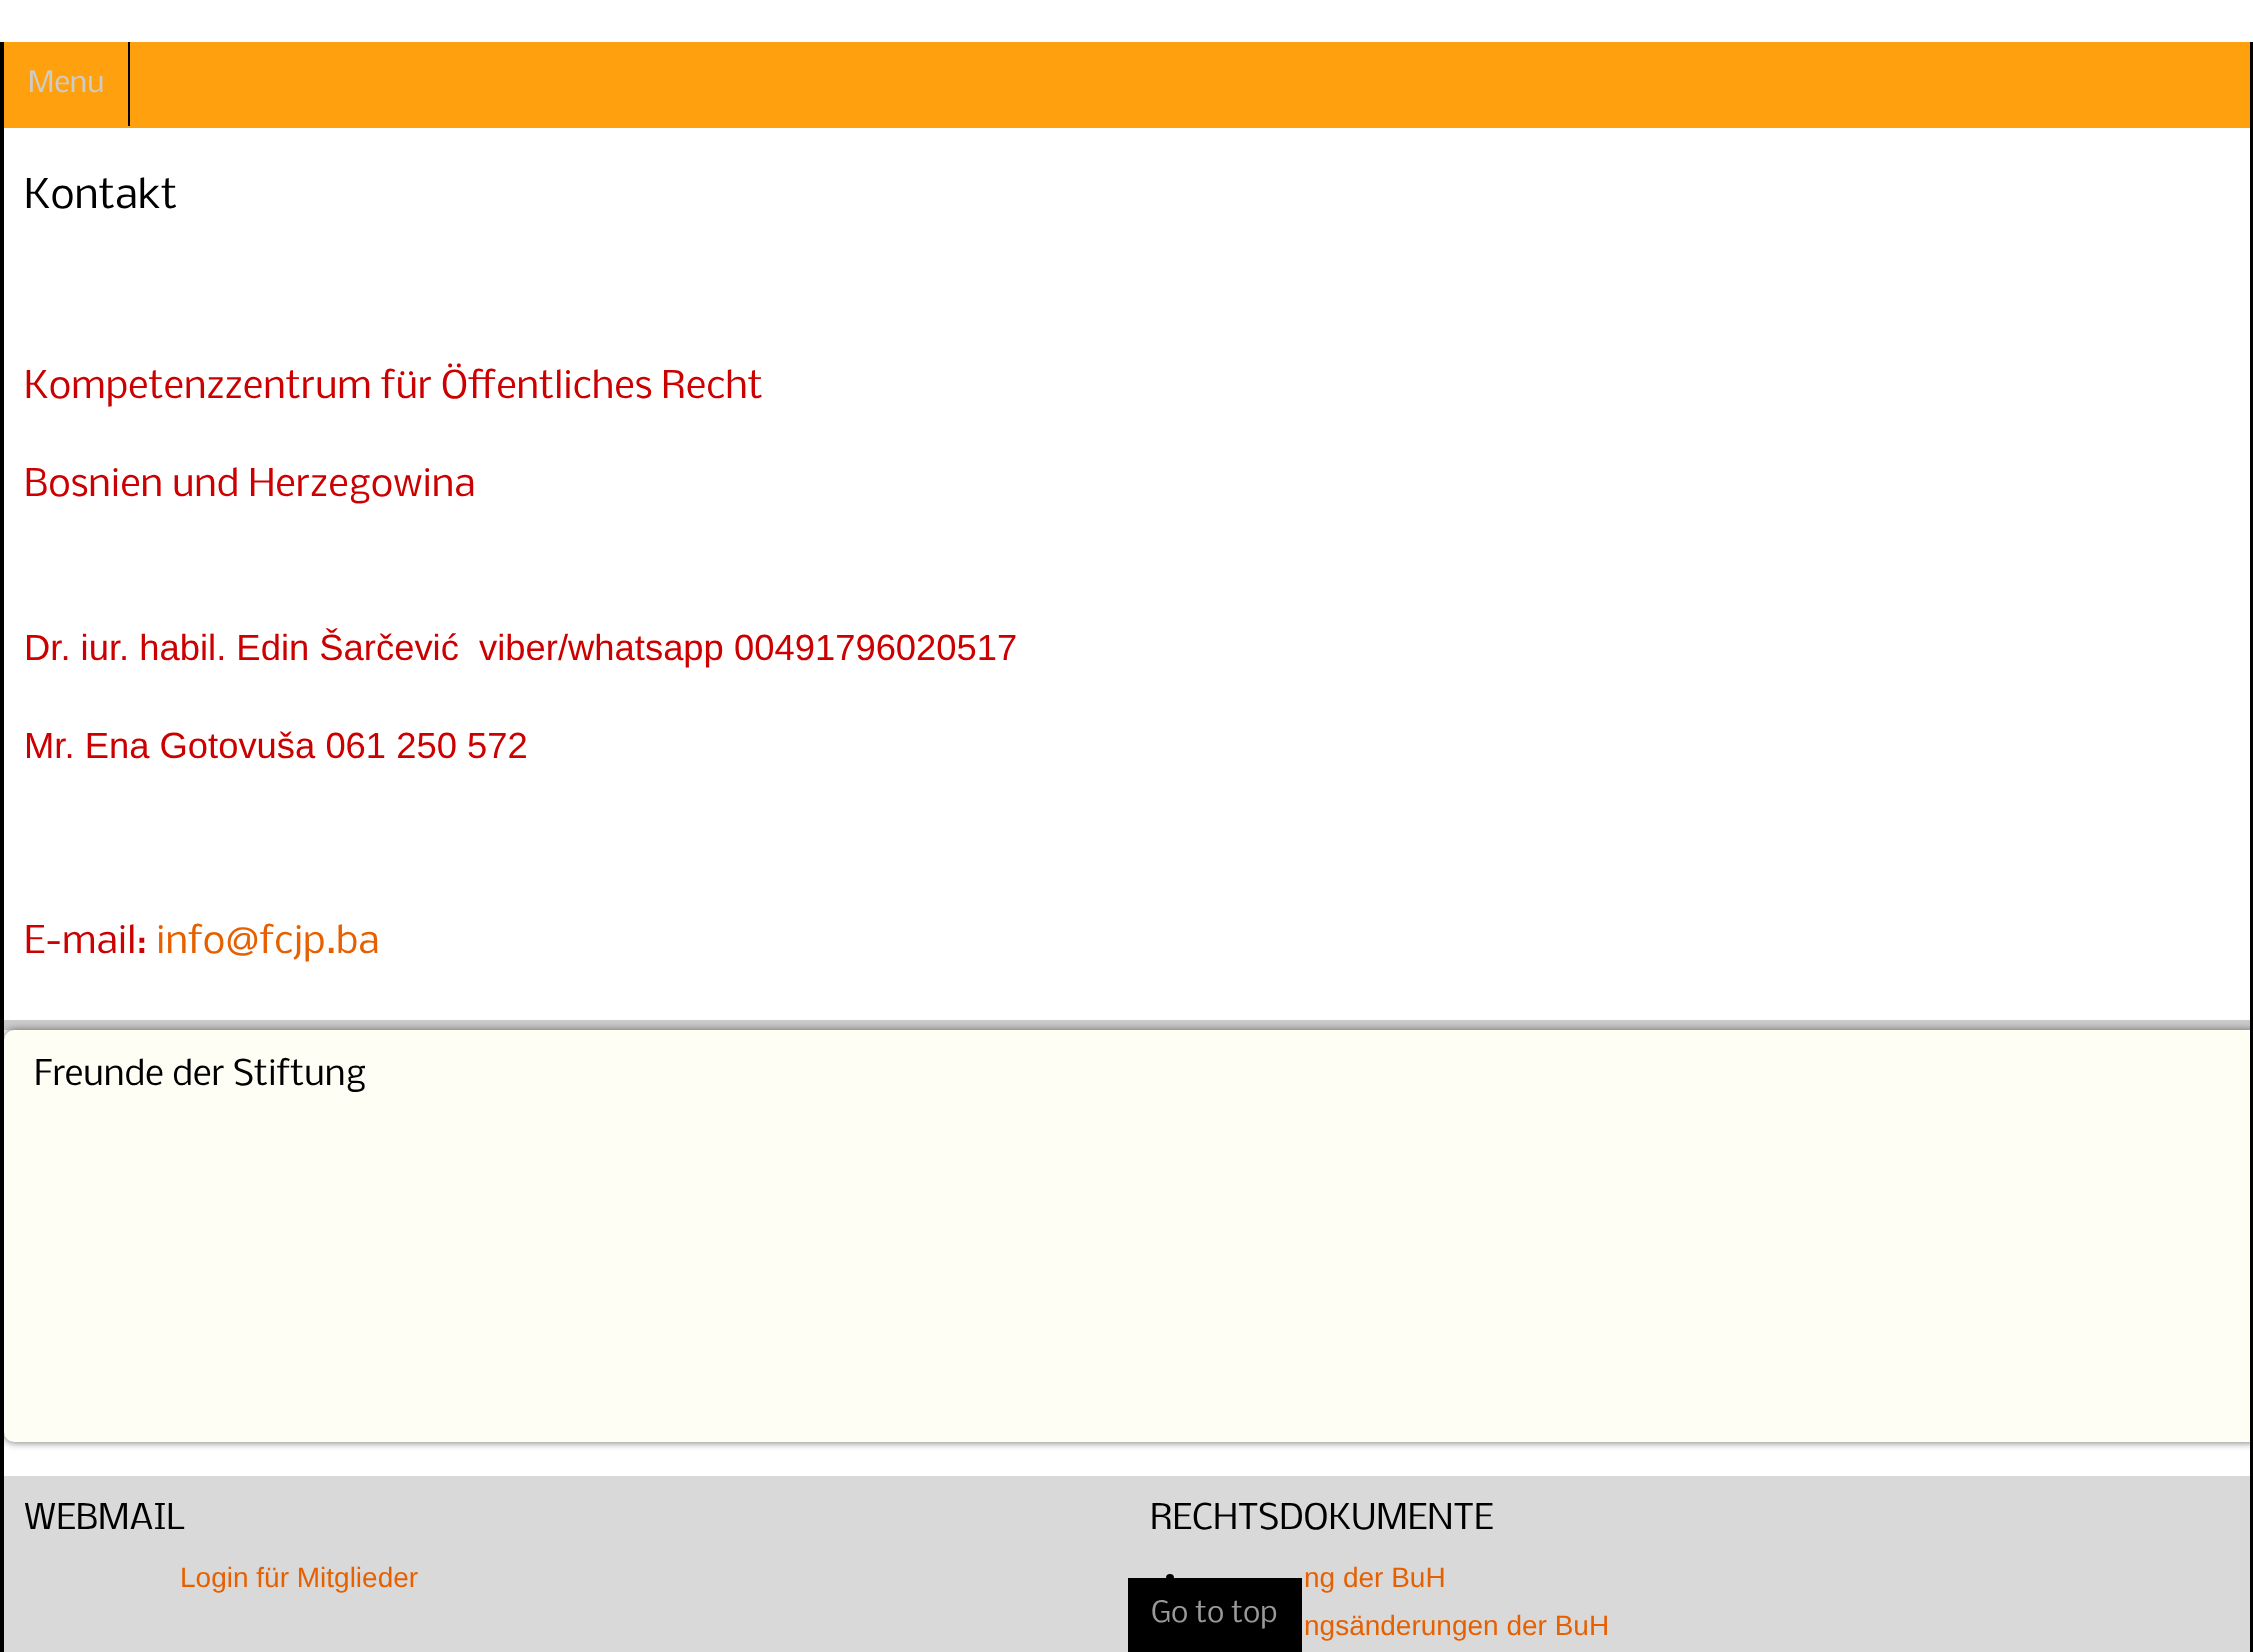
<!DOCTYPE html>
<meta charset="utf-8">
<style>body { margin: 0 } canvas { display: block }</style>
<canvas id="canvas" width="2253" height="1652"></canvas>
<script>
window.onload = function () {
    const canvas = document.getElementById('canvas');
    const context = canvas.getContext('2d');
    context.miterLimit = 4;
    context.fontKerning = 'normal';

    context.fillStyle = 'rgb(255, 255, 255)';
    context.fillRect(0, 0, 2253, 1652);
    context.fillStyle = 'rgb(0, 0, 0)';
    context.fillRect(2250, 42, 3, 1610);
    context.fillRect(0, 42, 4, 1610);
    context.fillStyle = 'rgb(255, 161, 15)';
    context.fillRect(4, 42, 2246, 86);
    context.fillStyle = 'rgb(0, 0, 0)';
    context.fillRect(128, 42, 2, 84);
    context.fillStyle = 'rgb(204, 204, 204)';
    context.fillRect(4, 1020, 2246, 10);
    context.save();
    context.beginPath();
    context.rect(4, 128, 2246, 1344);
    context.clip();
    context.fillStyle = 'rgb(102, 102, 102)';
    context.filter = 'blur(4px)';
    context.beginPath();
    context.roundRect(4, 1030, 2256, 412, 10);
    context.fill();
    context.filter = 'none';
    context.restore();
    context.fillStyle = 'rgb(254, 254, 245)';
    context.beginPath();
    context.roundRect(4, 1030, 2246, 412, [10, 0, 0, 10]);
    context.fill();
    context.fillStyle = 'rgb(217, 217, 217)';
    context.fillRect(4, 1476, 2246, 176);
    context.fillStyle = 'rgb(0, 0, 0)';
    context.beginPath();
    context.arc(1170, 1578, 4, 0, 2 * Math.PI);
    context.fill();
    context.fillRect(1128, 1578, 174, 74);
    context.font = '28px Nobile';
    context.fillStyle = 'rgb(204, 204, 204)';
    context.fillText('Menu', 28, 92);
    context.font = '39px Nobile';
    context.fillStyle = 'rgb(0, 0, 0)';
    context.fillText('Kontakt', 24, 208);
    context.font = '36.4px Nobile';
    context.fillStyle = 'rgb(204, 0, 0)';
    context.fillText('Kompetenzzentrum für Öffentliches Recht', 24, 398);
    context.fillText('Bosnien und Herzegowina', 24, 496);
    context.font = '36.4px Liberation Sans';
    context.fillText('Dr. iur. habil. Edin Šarčević  viber/whatsapp 00491796020517', 24, 660);
    context.fillText('Mr. Ena Gotovuša 061 250 572', 24, 758);
    context.font = '36.4px Nobile';
    context.fillText('E-mail:', 24, 953);
    context.fillStyle = 'rgb(230, 96, 0)';
    context.fillText('info@fcjp.ba', 156, 953);
    context.font = '33.6px Nobile';
    context.fillStyle = 'rgb(0, 0, 0)';
    context.fillText('Freunde der Stiftung', 34, 1085);
    context.fillText('WEBMAIL', 24, 1529);
    context.font = '28px Liberation Sans';
    context.fillStyle = 'rgb(230, 96, 0)';
    context.fillText('Login für Mitglieder', 180, 1587);
    context.font = '33.6px Nobile';
    context.fillStyle = 'rgb(0, 0, 0)';
    context.fillText('RECHTSDOKUMENTE', 1150, 1529);
    context.font = '28px Liberation Sans';
    context.fillStyle = 'rgb(230, 96, 0)';
    context.fillText('ng der BuH', 1304, 1587);
    context.fillText('ngsänderungen der BuH', 1304, 1635);
    context.font = '28px Nobile';
    context.fillStyle = 'rgb(153, 153, 153)';
    context.fillText('Go to top', 1151, 1622);
};
</script>
